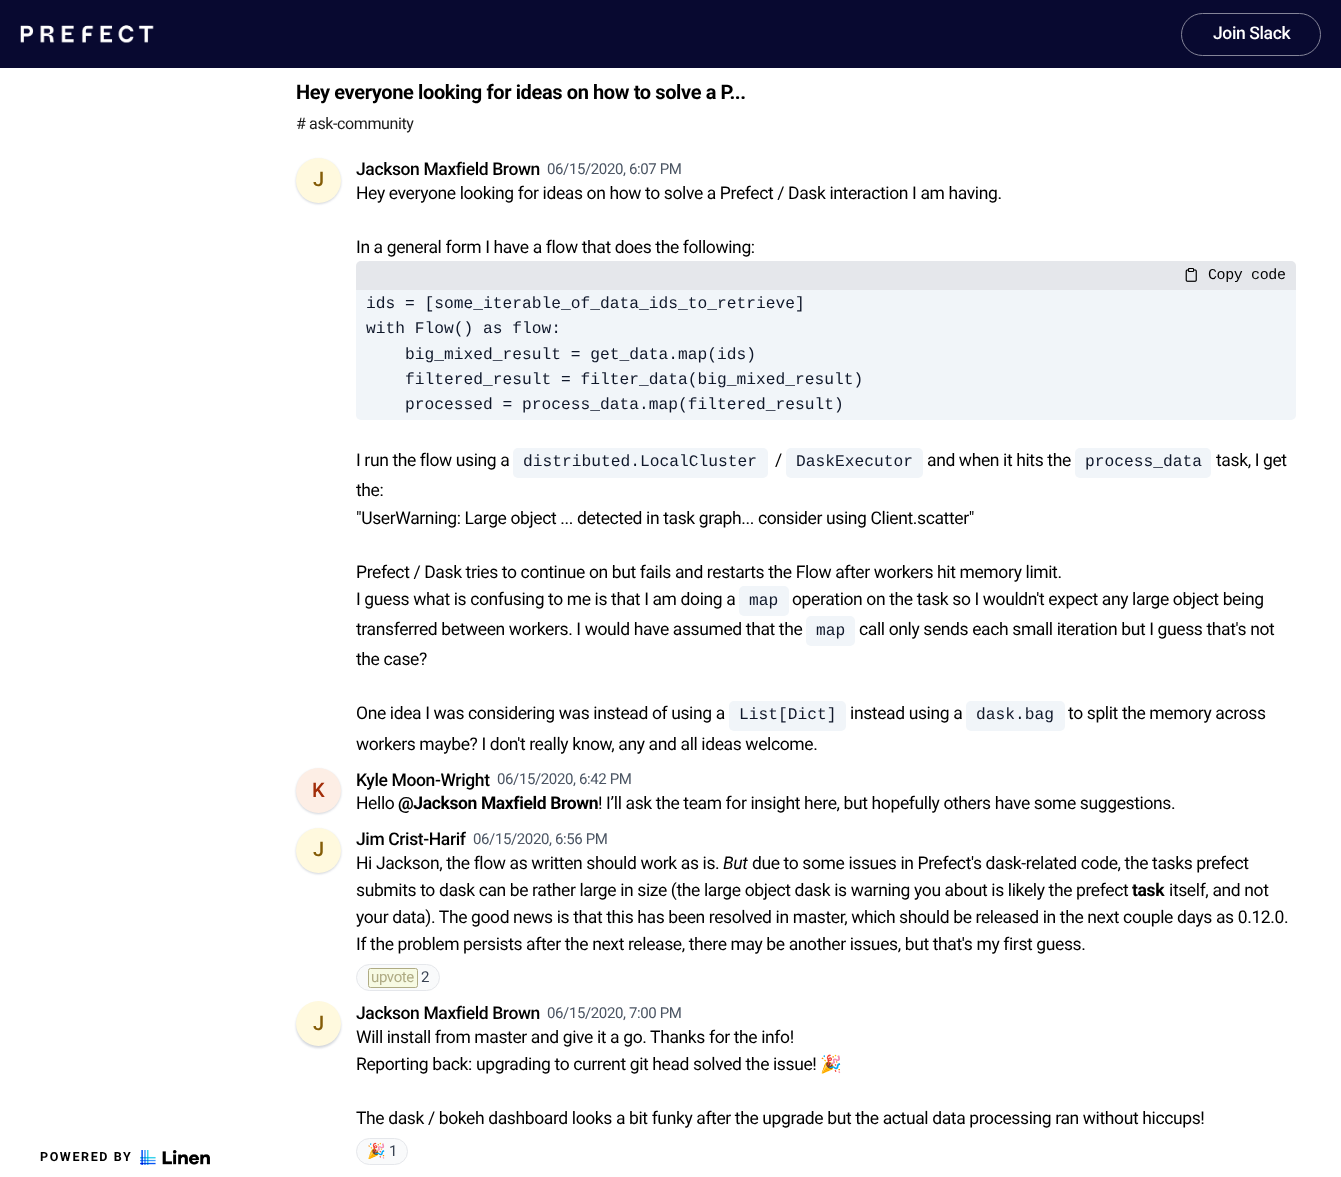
<!DOCTYPE html>
<meta charset="utf-8">
<style>body { margin: 0 } canvas { display: block }</style>
<canvas id="canvas" width="1341" height="1177"></canvas>
<img id="img1" src="images/1.png" hidden>
<img id="img2" src="images/2.png" hidden>
<img id="img3" src="images/3.png" hidden>
<script>
window.onload = function () {
    const canvas = document.getElementById('canvas');
    const context = canvas.getContext('2d');
    context.miterLimit = 4;
    context.fontKerning = 'normal';

    context.fillStyle = 'rgb(255, 255, 255)';
    context.fillRect(0, 0, 1341, 1177);
    context.fillStyle = 'rgb(8, 9, 48)';
    context.fillRect(0, 0, 1341, 68);
    context.drawImage(document.getElementById('img1'), 20, 25, 134, 18);
    context.beginPath();
    context.roundRect(1181.5, 13.5, 139, 42, 21);
    context.strokeStyle = 'rgb(132, 132, 152)';
    context.stroke();
    context.drawImage(document.getElementById('img2'), 140, 1150, 70, 15);
    context.fillStyle = 'rgb(209, 213, 219)';
    context.filter = 'blur(1px)';
    context.beginPath();
    context.roundRect(296, 159, 45, 45, 22.5);
    context.fill();
    context.filter = 'none';
    context.fillStyle = 'rgb(255, 249, 222)';
    context.beginPath();
    context.arc(318.5, 180.5, 22.5, 0, 2 * Math.PI);
    context.fill();
    context.fillStyle = 'rgb(229, 231, 235)';
    context.beginPath();
    context.roundRect(356, 261, 940, 29, [5, 5, 0, 0]);
    context.fill();
    context.drawImage(document.getElementById('img3'), 1185, 268, 12, 14);
    context.fillStyle = 'rgb(241, 245, 249)';
    context.beginPath();
    context.roundRect(356, 290, 940, 130, [0, 0, 5, 5]);
    context.fill();
    context.beginPath();
    context.roundRect(513, 448, 255, 30, 5);
    context.fill();
    context.beginPath();
    context.roundRect(786, 448, 137, 30, 5);
    context.fill();
    context.beginPath();
    context.roundRect(1075, 448, 136, 30, 5);
    context.fill();
    context.beginPath();
    context.roundRect(739, 586, 50, 30, 5);
    context.fill();
    context.beginPath();
    context.roundRect(806, 616, 49, 30, 5);
    context.fill();
    context.beginPath();
    context.roundRect(729, 701, 117, 30, 5);
    context.fill();
    context.beginPath();
    context.roundRect(966, 701, 99, 30, 5);
    context.fill();
    context.fillStyle = 'rgb(209, 213, 219)';
    context.filter = 'blur(1px)';
    context.beginPath();
    context.roundRect(296, 769, 45, 45, 22.5);
    context.fill();
    context.filter = 'none';
    context.fillStyle = 'rgb(253, 238, 229)';
    context.beginPath();
    context.arc(318.5, 790.5, 22.5, 0, 2 * Math.PI);
    context.fill();
    context.fillStyle = 'rgb(209, 213, 219)';
    context.filter = 'blur(1px)';
    context.beginPath();
    context.roundRect(296, 829, 45, 45, 22.5);
    context.fill();
    context.filter = 'none';
    context.fillStyle = 'rgb(255, 249, 222)';
    context.beginPath();
    context.arc(318.5, 850.5, 22.5, 0, 2 * Math.PI);
    context.fill();
    context.fillStyle = 'rgb(249, 250, 251)';
    context.beginPath();
    context.roundRect(356.5, 964.5, 83, 26, 13);
    context.fill();
    context.strokeStyle = 'rgb(229, 231, 235)';
    context.stroke();
    context.fillStyle = 'rgb(247, 250, 227)';
    context.beginPath();
    context.roundRect(368.5, 968.5, 49, 19, 2);
    context.fill();
    context.strokeStyle = 'rgb(175, 171, 132)';
    context.stroke();
    context.fillStyle = 'rgb(209, 213, 219)';
    context.filter = 'blur(1px)';
    context.beginPath();
    context.roundRect(296, 1003, 45, 45, 22.5);
    context.fill();
    context.filter = 'none';
    context.fillStyle = 'rgb(255, 249, 222)';
    context.beginPath();
    context.arc(318.5, 1023.5, 22.5, 0, 2 * Math.PI);
    context.fill();
    context.fillStyle = 'rgb(249, 250, 251)';
    context.beginPath();
    context.roundRect(356.5, 1138.5, 51, 26, 13);
    context.fill();
    context.strokeStyle = 'rgb(229, 231, 235)';
    context.stroke();
    context.letterSpacing = '-0.38px';
    context.font = '500 17.5px Roboto';
    context.fillStyle = 'rgb(255, 255, 255)';
    context.fillText('Join Slack', 1213, 39);
    context.letterSpacing = '1.6px';
    context.font = 'bold 12.5px Roboto';
    context.fillStyle = 'rgb(0, 0, 0)';
    context.fillText('POWERED BY', 40, 1161);
    context.letterSpacing = '-0.38px';
    context.font = 'bold 20px Roboto';
    context.fillText('Hey everyone looking for ideas on how to solve a P...', 296, 99);
    context.font = '16px Roboto';
    context.fillStyle = 'rgb(26, 26, 26)';
    context.fillText('# ask-community', 296, 129);
    context.font = '500 20px Roboto';
    context.fillStyle = 'rgb(132, 92, 7)';
    context.fillText('J', 313, 186);
    context.font = '500 17.5px Roboto';
    context.fillStyle = 'rgb(0, 0, 0)';
    context.fillText('Jackson Maxfield Brown', 356, 175);
    context.font = '15px Roboto';
    context.fillStyle = 'rgb(75, 85, 99)';
    context.fillText('06/15/2020, 6:07 PM', 547, 174);
    context.font = '17.5px Roboto';
    context.fillStyle = 'rgb(0, 0, 0)';
    context.fillText('Hey everyone looking for ideas on how to solve a Prefect / Dask interaction I am having.', 356, 199);
    context.fillText('In a general form I have a flow that does the following:', 356, 253);
    context.font = '15px Liberation Mono';
    context.fillText('Copy code', 1208, 279);
    context.letterSpacing = '0px';
    context.font = '16.25px Liberation Mono';
    context.fillStyle = 'rgb(15, 23, 42)';
    context.fillText('ids = [some_iterable_of_data_ids_to_retrieve]', 366, 308);
    context.fillText('with Flow() as flow:', 366, 333);
    context.fillText('big_mixed_result = get_data.map(ids)', 405, 359);
    context.fillText('filtered_result = filter_data(big_mixed_result)', 405, 384);
    context.fillText('processed = process_data.map(filtered_result)', 405, 409);
    context.letterSpacing = '-0.38px';
    context.font = '17.5px Roboto';
    context.fillStyle = 'rgb(0, 0, 0)';
    context.fillText('I run the flow using a', 356, 466);
    context.letterSpacing = '0px';
    context.font = '16.25px Liberation Mono';
    context.fillStyle = 'rgb(15, 23, 42)';
    context.fillText('distributed.LocalCluster', 523, 466);
    context.letterSpacing = '-0.38px';
    context.font = '17.5px Roboto';
    context.fillStyle = 'rgb(0, 0, 0)';
    context.fillText('/', 775, 466);
    context.letterSpacing = '0px';
    context.font = '16.25px Liberation Mono';
    context.fillStyle = 'rgb(15, 23, 42)';
    context.fillText('DaskExecutor', 796, 466);
    context.letterSpacing = '-0.38px';
    context.font = '17.5px Roboto';
    context.fillStyle = 'rgb(0, 0, 0)';
    context.fillText('and when it hits the', 927, 466);
    context.letterSpacing = '0px';
    context.font = '16.25px Liberation Mono';
    context.fillStyle = 'rgb(15, 23, 42)';
    context.fillText('process_data', 1085, 466);
    context.letterSpacing = '-0.38px';
    context.font = '17.5px Roboto';
    context.fillStyle = 'rgb(0, 0, 0)';
    context.fillText('task, I get', 1216, 466);
    context.fillText('the:', 356, 496);
    context.fillText('"UserWarning: Large object ... detected in task graph... consider using Client.scatter"', 356, 524);
    context.fillText('Prefect / Dask tries to continue on but fails and restarts the Flow after workers hit memory limit.', 356, 578);
    context.fillText('I guess what is confusing to me is that I am doing a', 356, 605);
    context.letterSpacing = '0px';
    context.font = '16.25px Liberation Mono';
    context.fillStyle = 'rgb(15, 23, 42)';
    context.fillText('map', 749, 605);
    context.letterSpacing = '-0.38px';
    context.font = '17.5px Roboto';
    context.fillStyle = 'rgb(0, 0, 0)';
    context.fillText('operation on the task so I wouldn\'t expect any large object being', 792, 605);
    context.fillText('transferred between workers. I would have assumed that the', 356, 635);
    context.letterSpacing = '0px';
    context.font = '16.25px Liberation Mono';
    context.fillStyle = 'rgb(15, 23, 42)';
    context.fillText('map', 816, 635);
    context.letterSpacing = '-0.38px';
    context.font = '17.5px Roboto';
    context.fillStyle = 'rgb(0, 0, 0)';
    context.fillText('call only sends each small iteration but I guess that\'s not', 859, 635);
    context.fillText('the case?', 356, 665);
    context.fillText('One idea I was considering was instead of using a', 356, 719);
    context.letterSpacing = '0px';
    context.font = '16.25px Liberation Mono';
    context.fillStyle = 'rgb(15, 23, 42)';
    context.fillText('List[Dict]', 739, 719);
    context.letterSpacing = '-0.38px';
    context.font = '17.5px Roboto';
    context.fillStyle = 'rgb(0, 0, 0)';
    context.fillText('instead using a', 850, 719);
    context.letterSpacing = '0px';
    context.font = '16.25px Liberation Mono';
    context.fillStyle = 'rgb(15, 23, 42)';
    context.fillText('dask.bag', 976, 719);
    context.letterSpacing = '-0.38px';
    context.font = '17.5px Roboto';
    context.fillStyle = 'rgb(0, 0, 0)';
    context.fillText('to split the memory across', 1068, 719);
    context.fillText('workers maybe? I don\'t really know, any and all ideas welcome.', 356, 750);
    context.font = '500 20px Roboto';
    context.fillStyle = 'rgb(162, 45, 9)';
    context.fillText('K', 312, 797);
    context.font = '500 17.5px Roboto';
    context.fillStyle = 'rgb(0, 0, 0)';
    context.fillText('Kyle Moon-Wright', 356, 786);
    context.font = '15px Roboto';
    context.fillStyle = 'rgb(75, 85, 99)';
    context.fillText('06/15/2020, 6:42 PM', 497, 784);
    context.font = '17.5px Roboto';
    context.fillStyle = 'rgb(0, 0, 0)';
    context.fillText('Hello', 356, 809);
    context.font = 'bold 17.5px Roboto';
    context.fillText('@Jackson Maxfield Brown', 398, 809);
    context.font = '17.5px Roboto';
    context.fillText('! I’ll ask the team for insight here, but hopefully others have some suggestions.', 598, 809);
    context.font = '500 20px Roboto';
    context.fillStyle = 'rgb(132, 92, 7)';
    context.fillText('J', 313, 856);
    context.font = '500 17.5px Roboto';
    context.fillStyle = 'rgb(0, 0, 0)';
    context.fillText('Jim Crist-Harif', 356, 845);
    context.font = '15px Roboto';
    context.fillStyle = 'rgb(75, 85, 99)';
    context.fillText('06/15/2020, 6:56 PM', 473, 844);
    context.font = '17.5px Roboto';
    context.fillStyle = 'rgb(0, 0, 0)';
    context.fillText('Hi Jackson, the flow as written should work as is.', 356, 869);
    context.font = 'italic 17.5px Roboto';
    context.fillText('But', 723, 869);
    context.font = '17.5px Roboto';
    context.fillText('due to some issues in Prefect\'s dask-related code, the tasks prefect', 752, 869);
    context.fillText('submits to dask can be rather large in size (the large object dask is warning you about is likely the prefect', 356, 896);
    context.font = 'bold 17.5px Roboto';
    context.fillText('task', 1132, 896);
    context.font = '17.5px Roboto';
    context.fillText('itself, and not', 1169, 896);
    context.fillText('your data). The good news is that this has been resolved in master, which should be released in the next couple days as 0.12.0.', 356, 923);
    context.fillText('If the problem persists after the next release, there may be another issues, but that\'s my first guess.', 356, 950);
    context.font = '15px Roboto';
    context.fillStyle = 'rgb(175, 171, 132)';
    context.fillText('upvote', 371, 982);
    context.fillStyle = 'rgb(55, 65, 81)';
    context.fillText('2', 421, 982);
    context.font = '500 20px Roboto';
    context.fillStyle = 'rgb(132, 92, 7)';
    context.fillText('J', 313, 1030);
    context.font = '500 17.5px Roboto';
    context.fillStyle = 'rgb(0, 0, 0)';
    context.fillText('Jackson Maxfield Brown', 356, 1019);
    context.font = '15px Roboto';
    context.fillStyle = 'rgb(75, 85, 99)';
    context.fillText('06/15/2020, 7:00 PM', 547, 1018);
    context.font = '17.5px Roboto';
    context.fillStyle = 'rgb(0, 0, 0)';
    context.fillText('Will install from master and give it a go. Thanks for the info!', 356, 1043);
    context.fillText('Reporting back: upgrading to current git head solved the issue!', 356, 1070);
    context.font = '17.5px Noto Color Emoji';
    context.fillText('🎉', 820, 1070);
    context.font = '17.5px Roboto';
    context.fillText('The dask / bokeh dashboard looks a bit funky after the upgrade but the actual data processing ran without hiccups!', 356, 1124);
    context.font = '15px Noto Color Emoji';
    context.fillStyle = 'rgb(55, 65, 81)';
    context.fillText('🎉', 367, 1156);
    context.font = '15px Roboto';
    context.fillText('1', 389, 1156);
};
</script>
